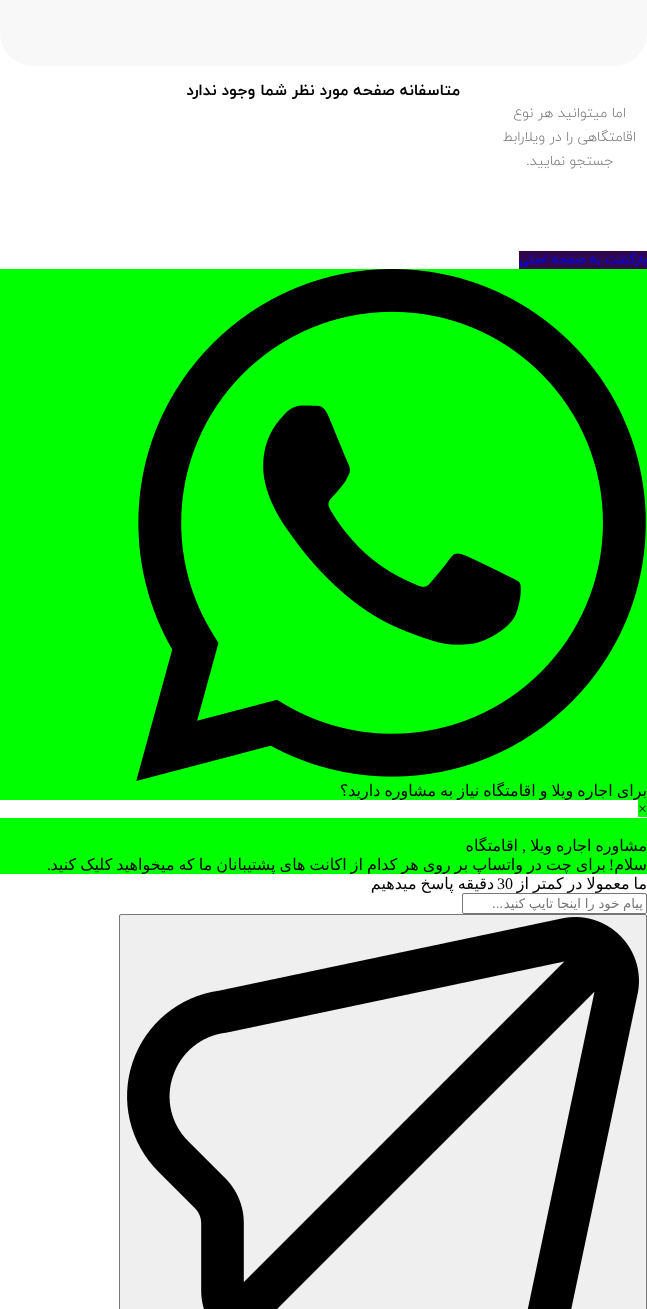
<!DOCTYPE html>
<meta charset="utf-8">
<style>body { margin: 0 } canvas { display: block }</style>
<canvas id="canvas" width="647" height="1309"></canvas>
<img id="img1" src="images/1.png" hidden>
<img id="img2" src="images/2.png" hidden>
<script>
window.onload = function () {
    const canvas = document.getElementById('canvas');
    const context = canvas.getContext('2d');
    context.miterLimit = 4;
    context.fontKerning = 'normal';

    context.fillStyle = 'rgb(255, 255, 255)';
    context.fillRect(0, 0, 647, 1309);
    context.fillStyle = 'rgb(248, 248, 248)';
    context.beginPath();
    context.roundRect(0, -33, 647, 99, 33);
    context.fill();
    context.fillStyle = 'rgb(48, 7, 77)';
    context.fillRect(519, 251, 128, 18);
    context.fillStyle = 'rgb(0, 255, 0)';
    context.fillRect(0, 269, 647, 531);
    context.drawImage(document.getElementById('img1'), 136, 269, 510, 512);
    context.fillRect(638, 800, 9, 17);
    context.fillRect(0, 818, 647, 56);
    context.beginPath();
    context.roundRect(462.5, 893.5, 184, 20, 1.5);
    context.strokeStyle = 'rgb(118, 118, 118)';
    context.stroke();
    context.fillStyle = 'rgb(239, 239, 239)';
    context.beginPath();
    context.roundRect(119.5, 914.5, 527, 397, 1.5);
    context.fill();
    context.stroke();
    context.drawImage(document.getElementById('img2'), 127, 917, 512, 392);
    context.direction = 'rtl';
    context.font = 'bold 16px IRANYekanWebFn';
    context.fillStyle = 'rgb(0, 0, 0)';
    context.fillText('متاسفانه صفحه مورد نظر شما وجود ندارد', 460, 95);
    context.font = '300 14px IRANYekanWebFn';
    context.fillStyle = 'rgb(118, 118, 118)';
    context.fillText('اما میتوانید هر نوع', 626, 117);
    context.fillText('اقامتگاهی را در ویلارابط', 636, 141);
    context.fillText('جستجو نمایید.', 613, 165);
    context.font = '500 13px IRANYekanWebFn';
    context.fillStyle = 'rgb(0, 0, 238)';
    context.fillText('بازگشت به صفحه اصلی', 647, 263);
    context.wordSpacing = '-1px';
    context.font = '16px DejaVu Sans';
    context.fillStyle = 'rgb(0, 0, 0)';
    context.fillText('برای اجاره ویلا و اقامتگاه نیاز به مشاوره دارید؟', 647, 796);
    context.wordSpacing = '0px';
    context.direction = 'ltr';
    context.font = '16px Liberation Serif';
    context.fillText('×', 638, 814);
    context.wordSpacing = '-1px';
    context.direction = 'rtl';
    context.font = '16px DejaVu Sans';
    context.fillText('مشاوره اجاره ویلا', 647, 851);
    context.wordSpacing = '0px';
    context.font = '16px Liberation Serif';
    context.fillText(',', 526, 851);
    context.font = '16px DejaVu Sans';
    context.fillText('اقامتگاه', 518, 851);
    context.fillText('سلام', 647, 870);
    context.font = '16px Liberation Serif';
    context.fillText('!', 614, 870);
    context.wordSpacing = '-1px';
    context.font = '16px DejaVu Sans';
    context.fillText('برای چت در واتساپ بر روی هر کدام از اکانت های پشتیبانان ما که میخواهید کلیک کنید', 606, 870);
    context.wordSpacing = '0px';
    context.font = '16px Liberation Serif';
    context.fillText('.', 51, 870);
    context.wordSpacing = '-1px';
    context.font = '16px DejaVu Sans';
    context.fillText('ما معمولا در کمتر از', 647, 889);
    context.wordSpacing = '0px';
    context.direction = 'ltr';
    context.font = '16px Liberation Serif';
    context.fillText('30', 497, 889);
    context.wordSpacing = '-1px';
    context.direction = 'rtl';
    context.font = '16px DejaVu Sans';
    context.fillText('دقیقه پاسخ میدهیم', 494, 889);
    context.save();
    context.beginPath();
    context.rect(466, 896, 177, 15);
    context.clip();
    context.wordSpacing = '-0.5px';
    context.font = '13.25px DejaVu Sans';
    context.fillStyle = 'rgb(118, 118, 118)';
    context.fillText('پیام خود را اینجا تایپ کنید', 643, 908);
    context.restore();
    context.wordSpacing = '0px';
    context.font = '13.25px Liberation Sans';
    context.fillStyle = 'rgb(118, 118, 118)';
    context.fillText('...', 503, 908);
};
</script>
